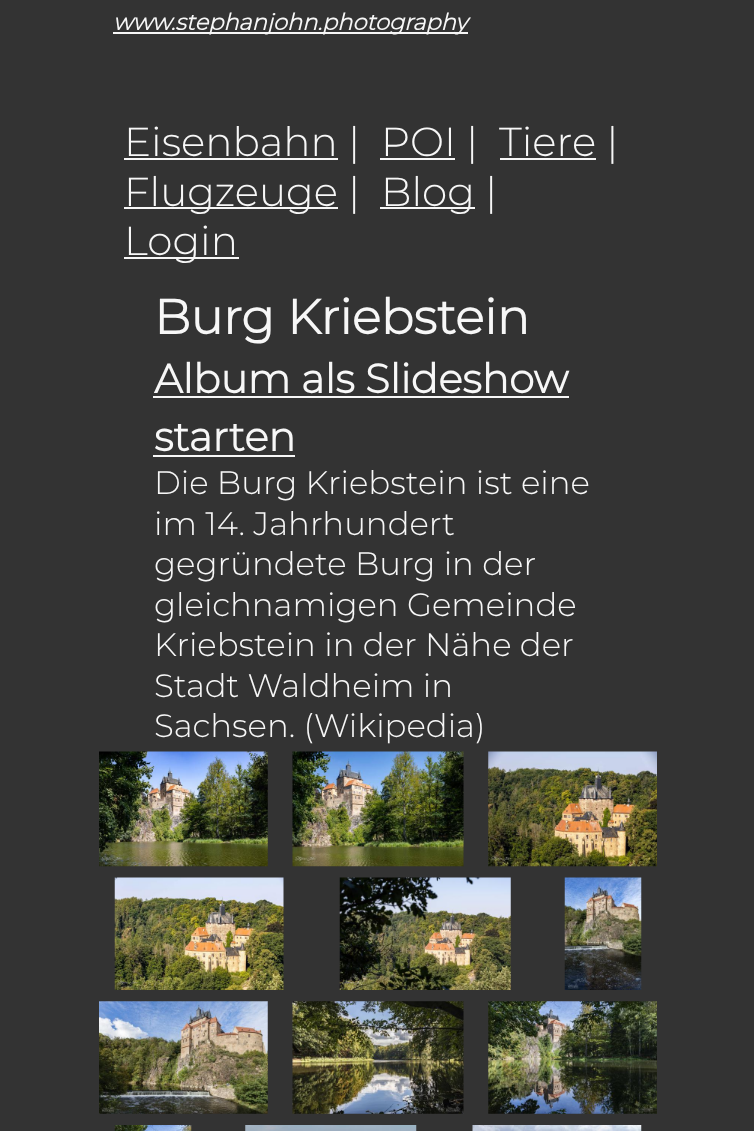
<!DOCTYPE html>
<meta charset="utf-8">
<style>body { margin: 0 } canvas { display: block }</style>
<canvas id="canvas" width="754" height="1131"></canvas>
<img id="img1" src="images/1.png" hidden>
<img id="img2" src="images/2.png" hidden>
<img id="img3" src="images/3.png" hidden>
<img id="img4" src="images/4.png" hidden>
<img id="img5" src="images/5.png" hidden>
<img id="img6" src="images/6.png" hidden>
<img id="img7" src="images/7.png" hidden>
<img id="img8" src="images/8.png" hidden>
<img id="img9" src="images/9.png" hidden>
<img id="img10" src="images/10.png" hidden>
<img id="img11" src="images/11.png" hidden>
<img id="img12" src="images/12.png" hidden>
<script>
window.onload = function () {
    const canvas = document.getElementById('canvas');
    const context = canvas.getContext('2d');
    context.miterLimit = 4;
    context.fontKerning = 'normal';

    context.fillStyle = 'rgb(51, 51, 51)';
    context.fillRect(0, 0, 754, 1131);
    context.fillStyle = 'rgb(247, 247, 247)';
    context.fillRect(113, 32, 355, 2);
    context.fillRect(124, 158, 214, 2);
    context.fillRect(380, 158, 75, 2);
    context.fillRect(500, 158, 96, 2);
    context.fillRect(124, 207, 214, 2);
    context.fillRect(380, 207, 95, 2);
    context.fillRect(124, 257, 115, 2);
    context.fillRect(153, 396, 416, 2);
    context.fillRect(153, 455, 142, 2);
    context.drawImage(document.getElementById('img1'), 99, 751, 169, 116);
    context.drawImage(document.getElementById('img2'), 292, 751, 172, 116);
    context.drawImage(document.getElementById('img3'), 488, 751, 169, 116);
    context.drawImage(document.getElementById('img4'), 114, 877, 170, 113);
    context.drawImage(document.getElementById('img5'), 339, 877, 172, 113);
    context.drawImage(document.getElementById('img6'), 564, 877, 78, 113);
    context.drawImage(document.getElementById('img7'), 99, 1001, 169, 113);
    context.drawImage(document.getElementById('img8'), 292, 1001, 172, 113);
    context.drawImage(document.getElementById('img9'), 488, 1001, 169, 113);
    context.drawImage(document.getElementById('img10'), 114, 1125, 78, 6);
    context.drawImage(document.getElementById('img11'), 245, 1125, 172, 6);
    context.drawImage(document.getElementById('img12'), 472, 1125, 170, 6);
    context.font = 'italic bold 22.6px Montserrat';
    context.fillText('www.stephanjohn.photography', 113, 30);
    context.font = '100 40.5px Montserrat';
    context.fillText('Eisenbahn |', 124, 156);
    context.fillText('POI |', 381, 156);
    context.fillText('Tiere |', 499, 156);
    context.fillText('Flugzeuge |', 124, 206);
    context.fillText('Blog |', 381, 206);
    context.fillText('Login', 124, 255);
    context.font = 'bold 48.5px Montserrat';
    context.fillText('Burg Kriebstein', 154, 334);
    context.font = 'bold 40.5px Montserrat';
    context.fillText('Album als Slideshow', 154, 393);
    context.fillText('starten', 154, 451);
    context.font = '100 32.4px Montserrat';
    context.fillText('Die Burg Kriebstein ist eine', 154, 494);
    context.fillText('im 14. Jahrhundert', 154, 535);
    context.fillText('gegründete Burg in der', 154, 575);
    context.fillText('gleichnamigen Gemeinde', 154, 616);
    context.fillText('Kriebstein in der Nähe der', 154, 656);
    context.fillText('Stadt Waldheim in', 154, 697);
    context.fillText('Sachsen. (Wikipedia)', 154, 737);
};
</script>
